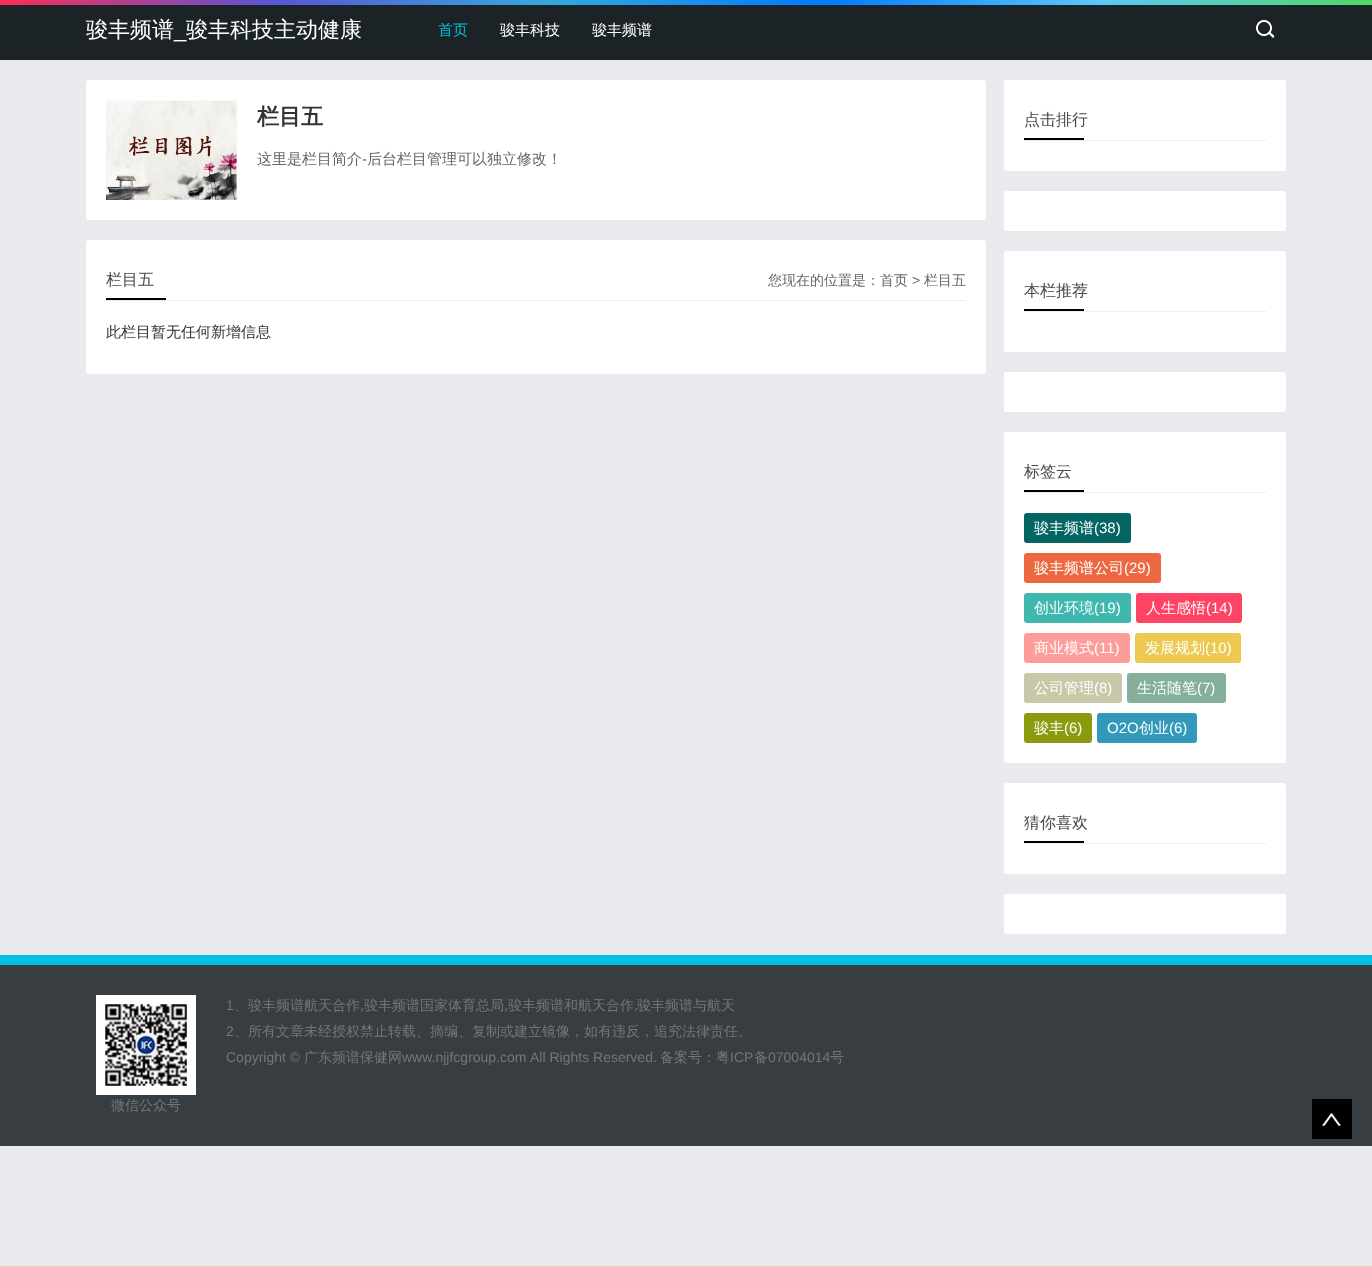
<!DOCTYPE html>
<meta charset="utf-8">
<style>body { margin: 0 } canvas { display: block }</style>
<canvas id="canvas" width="1372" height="1266"></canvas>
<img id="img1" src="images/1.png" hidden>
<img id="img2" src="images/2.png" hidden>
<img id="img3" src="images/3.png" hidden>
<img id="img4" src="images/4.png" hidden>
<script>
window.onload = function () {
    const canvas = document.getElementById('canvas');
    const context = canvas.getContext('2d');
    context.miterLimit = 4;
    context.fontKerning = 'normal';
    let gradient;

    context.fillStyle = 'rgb(233, 234, 237)';
    context.fillRect(0, 0, 1372, 1266);
    context.fillStyle = 'rgb(28, 35, 39)';
    context.fillRect(0, 5, 1372, 55);
    gradient = context.createLinearGradient(1372, 2.5, 0, 2.5);
    gradient.addColorStop(0, 'rgb(76, 217, 100)');
    gradient.addColorStop(0.2, 'rgb(90, 200, 250)');
    gradient.addColorStop(0.4, 'rgb(0, 122, 255)');
    gradient.addColorStop(0.6, 'rgb(52, 170, 220)');
    gradient.addColorStop(0.8, 'rgb(88, 86, 214)');
    gradient.addColorStop(1, 'rgb(255, 45, 85)');
    context.fillStyle = gradient;
    context.fillRect(0, 0, 1372, 5);
    context.drawImage(document.getElementById('img1'), 1256, 20, 19, 18);
    context.fillStyle = 'rgb(255, 255, 255)';
    context.beginPath();
    context.roundRect(86, 80, 900, 140, 3);
    context.fill();
    context.drawImage(document.getElementById('img2'), 106, 100, 131, 100);
    context.beginPath();
    context.roundRect(86, 240, 900, 134, 3);
    context.fill();
    context.fillStyle = 'rgb(238, 238, 238)';
    context.fillRect(106, 300, 860, 1);
    context.fillStyle = 'rgb(0, 0, 0)';
    context.fillRect(106, 298, 60, 2);
    context.fillStyle = 'rgb(255, 255, 255)';
    context.beginPath();
    context.roundRect(1004, 80, 282, 91, 3);
    context.fill();
    context.fillStyle = 'rgb(238, 238, 238)';
    context.fillRect(1024, 140, 242, 1);
    context.fillStyle = 'rgb(0, 0, 0)';
    context.fillRect(1024, 138, 60, 2);
    context.fillStyle = 'rgb(255, 255, 255)';
    context.beginPath();
    context.roundRect(1004, 191, 282, 40, 3);
    context.fill();
    context.beginPath();
    context.roundRect(1004, 251, 282, 101, 3);
    context.fill();
    context.fillStyle = 'rgb(238, 238, 238)';
    context.fillRect(1024, 311, 242, 1);
    context.fillStyle = 'rgb(0, 0, 0)';
    context.fillRect(1024, 309, 60, 2);
    context.fillStyle = 'rgb(255, 255, 255)';
    context.beginPath();
    context.roundRect(1004, 372, 282, 40, 3);
    context.fill();
    context.beginPath();
    context.roundRect(1004, 432, 282, 331, 3);
    context.fill();
    context.fillStyle = 'rgb(238, 238, 238)';
    context.fillRect(1024, 492, 242, 1);
    context.fillStyle = 'rgb(0, 0, 0)';
    context.fillRect(1024, 490, 60, 2);
    context.fillStyle = 'rgb(3, 101, 100)';
    context.beginPath();
    context.roundRect(1024, 513, 107, 30, 3);
    context.fill();
    context.fillStyle = 'rgb(235, 104, 65)';
    context.beginPath();
    context.roundRect(1024, 553, 137, 30, 3);
    context.fill();
    context.fillStyle = 'rgb(63, 184, 175)';
    context.beginPath();
    context.roundRect(1024, 593, 107, 30, 3);
    context.fill();
    context.fillStyle = 'rgb(254, 67, 101)';
    context.beginPath();
    context.roundRect(1136, 593, 106, 30, 3);
    context.fill();
    context.fillStyle = 'rgb(252, 157, 154)';
    context.beginPath();
    context.roundRect(1024, 633, 106, 30, 3);
    context.fill();
    context.fillStyle = 'rgb(237, 201, 81)';
    context.beginPath();
    context.roundRect(1135, 633, 106, 30, 3);
    context.fill();
    context.fillStyle = 'rgb(200, 200, 169)';
    context.beginPath();
    context.roundRect(1024, 673, 98, 30, 3);
    context.fill();
    context.fillStyle = 'rgb(131, 175, 155)';
    context.beginPath();
    context.roundRect(1127, 673, 99, 30, 3);
    context.fill();
    context.fillStyle = 'rgb(138, 155, 15)';
    context.beginPath();
    context.roundRect(1024, 713, 68, 30, 3);
    context.fill();
    context.fillStyle = 'rgb(50, 153, 187)';
    context.beginPath();
    context.roundRect(1097, 713, 100, 30, 3);
    context.fill();
    context.fillStyle = 'rgb(255, 255, 255)';
    context.beginPath();
    context.roundRect(1004, 783, 282, 91, 3);
    context.fill();
    context.fillStyle = 'rgb(238, 238, 238)';
    context.fillRect(1024, 843, 242, 1);
    context.fillStyle = 'rgb(0, 0, 0)';
    context.fillRect(1024, 841, 60, 2);
    context.fillStyle = 'rgb(255, 255, 255)';
    context.beginPath();
    context.roundRect(1004, 894, 282, 40, 3);
    context.fill();
    context.fillStyle = 'rgb(55, 61, 65)';
    context.fillRect(0, 965, 1372, 181);
    context.fillStyle = 'rgb(0, 193, 222)';
    context.fillRect(0, 955, 1372, 10);
    context.drawImage(document.getElementById('img3'), 96, 995, 100, 100);
    context.fillStyle = 'rgb(0, 0, 0)';
    context.fillRect(1312, 1099, 40, 40);
    context.drawImage(document.getElementById('img4'), 1322, 1113, 19, 13);
    context.font = '500 22px WenQuanYi Zen Hei';
    context.fillStyle = 'rgb(255, 255, 255)';
    context.fillText('骏丰频谱', 86, 37);
    context.font = '22px Liberation Sans';
    context.fillText('_', 174, 37);
    context.font = '500 22px WenQuanYi Zen Hei';
    context.fillText('骏丰科技主动健康', 186, 37);
    context.font = '500 15px WenQuanYi Zen Hei';
    context.fillStyle = 'rgb(0, 193, 222)';
    context.fillText('首页', 438, 35);
    context.fillStyle = 'rgb(255, 255, 255)';
    context.fillText('骏丰科技', 500, 35);
    context.fillText('骏丰频谱', 592, 35);
    context.font = 'bold 22px WenQuanYi Zen Hei';
    context.fillStyle = 'rgb(51, 51, 51)';
    context.fillText('栏目五', 257, 124);
    context.font = '500 15px WenQuanYi Zen Hei';
    context.fillStyle = 'rgb(102, 102, 102)';
    context.fillText('这里是栏目简介', 257, 164);
    context.font = '15px Liberation Sans';
    context.fillText('-', 362, 164);
    context.font = '500 15px WenQuanYi Zen Hei';
    context.fillText('后台栏目管理可以独立修改！', 367, 164);
    context.font = '500 16px WenQuanYi Zen Hei';
    context.fillStyle = 'rgb(72, 72, 72)';
    context.fillText('栏目五', 106, 285);
    context.font = '500 14px WenQuanYi Zen Hei';
    context.fillStyle = 'rgb(102, 102, 102)';
    context.fillText('您现在的位置是：首页', 768, 285);
    context.font = '14px Liberation Sans';
    context.fillText('>', 912, 285);
    context.font = '500 14px WenQuanYi Zen Hei';
    context.fillText('栏目五', 924, 285);
    context.font = '500 15px WenQuanYi Zen Hei';
    context.fillStyle = 'rgb(51, 51, 51)';
    context.fillText('此栏目暂无任何新增信息', 106, 337);
    context.font = '500 16px WenQuanYi Zen Hei';
    context.fillStyle = 'rgb(72, 72, 72)';
    context.fillText('点击排行', 1024, 125);
    context.fillText('本栏推荐', 1024, 296);
    context.fillText('标签云', 1024, 477);
    context.font = '500 15px WenQuanYi Zen Hei';
    context.fillStyle = 'rgb(255, 255, 255)';
    context.fillText('骏丰频谱', 1034, 533);
    context.font = '15px Liberation Sans';
    context.fillText('(38)', 1094, 533);
    context.font = '500 15px WenQuanYi Zen Hei';
    context.fillText('骏丰频谱公司', 1034, 573);
    context.font = '15px Liberation Sans';
    context.fillText('(29)', 1124, 573);
    context.font = '500 15px WenQuanYi Zen Hei';
    context.fillText('创业环境', 1034, 613);
    context.font = '15px Liberation Sans';
    context.fillText('(19)', 1094, 613);
    context.font = '500 15px WenQuanYi Zen Hei';
    context.fillText('人生感悟', 1146, 613);
    context.font = '15px Liberation Sans';
    context.fillText('(14)', 1206, 613);
    context.font = '500 15px WenQuanYi Zen Hei';
    context.fillText('商业模式', 1034, 653);
    context.font = '15px Liberation Sans';
    context.fillText('(11)', 1094, 653);
    context.font = '500 15px WenQuanYi Zen Hei';
    context.fillText('发展规划', 1145, 653);
    context.font = '15px Liberation Sans';
    context.fillText('(10)', 1205, 653);
    context.font = '500 15px WenQuanYi Zen Hei';
    context.fillText('公司管理', 1034, 693);
    context.font = '15px Liberation Sans';
    context.fillText('(8)', 1094, 693);
    context.font = '500 15px WenQuanYi Zen Hei';
    context.fillText('生活随笔', 1137, 693);
    context.font = '15px Liberation Sans';
    context.fillText('(7)', 1197, 693);
    context.font = '500 15px WenQuanYi Zen Hei';
    context.fillText('骏丰', 1034, 733);
    context.font = '15px Liberation Sans';
    context.fillText('(6)', 1064, 733);
    context.fillText('O2O', 1107, 733);
    context.font = '500 15px WenQuanYi Zen Hei';
    context.fillText('创业', 1139, 733);
    context.font = '15px Liberation Sans';
    context.fillText('(6)', 1169, 733);
    context.font = '500 16px WenQuanYi Zen Hei';
    context.fillStyle = 'rgb(72, 72, 72)';
    context.fillText('猜你喜欢', 1024, 828);
    context.font = '14px Liberation Sans';
    context.fillStyle = 'rgb(115, 119, 122)';
    context.fillText('1', 226, 1010);
    context.font = '500 14px WenQuanYi Zen Hei';
    context.fillText('、骏丰频谱航天合作', 234, 1010);
    context.font = '14px Liberation Sans';
    context.fillText(',', 360, 1010);
    context.font = '500 14px WenQuanYi Zen Hei';
    context.fillText('骏丰频谱国家体育总局', 364, 1010);
    context.font = '14px Liberation Sans';
    context.fillText(',', 504, 1010);
    context.font = '500 14px WenQuanYi Zen Hei';
    context.fillText('骏丰频谱和航天合作', 508, 1010);
    context.font = '14px Liberation Sans';
    context.fillText(',', 634, 1010);
    context.font = '500 14px WenQuanYi Zen Hei';
    context.fillText('骏丰频谱与航天', 637, 1010);
    context.font = '14px Liberation Sans';
    context.fillText('2', 226, 1036);
    context.font = '500 14px WenQuanYi Zen Hei';
    context.fillText('、所有文章未经授权禁止转载、摘编、复制或建立镜像，如有违反，追究法律责任。', 234, 1036);
    context.font = '14px Liberation Sans';
    context.fillText('Copyright ©', 226, 1062);
    context.font = '500 14px WenQuanYi Zen Hei';
    context.fillText('广东频谱保健网', 304, 1062);
    context.font = '14px Liberation Sans';
    context.fillText('www.njjfcgroup.com', 402, 1062);
    context.fillText('All Rights Reserved.', 530, 1062);
    context.font = '500 14px WenQuanYi Zen Hei';
    context.fillText('备案号：粤', 660, 1062);
    context.font = '14px Liberation Sans';
    context.fillText('ICP', 730, 1062);
    context.font = '500 14px WenQuanYi Zen Hei';
    context.fillText('备', 754, 1062);
    context.font = '14px Liberation Sans';
    context.fillText('07004014', 768, 1062);
    context.font = '500 14px WenQuanYi Zen Hei';
    context.fillText('号', 830, 1062);
    context.fillText('微信公众号', 111, 1110);
};
</script>
